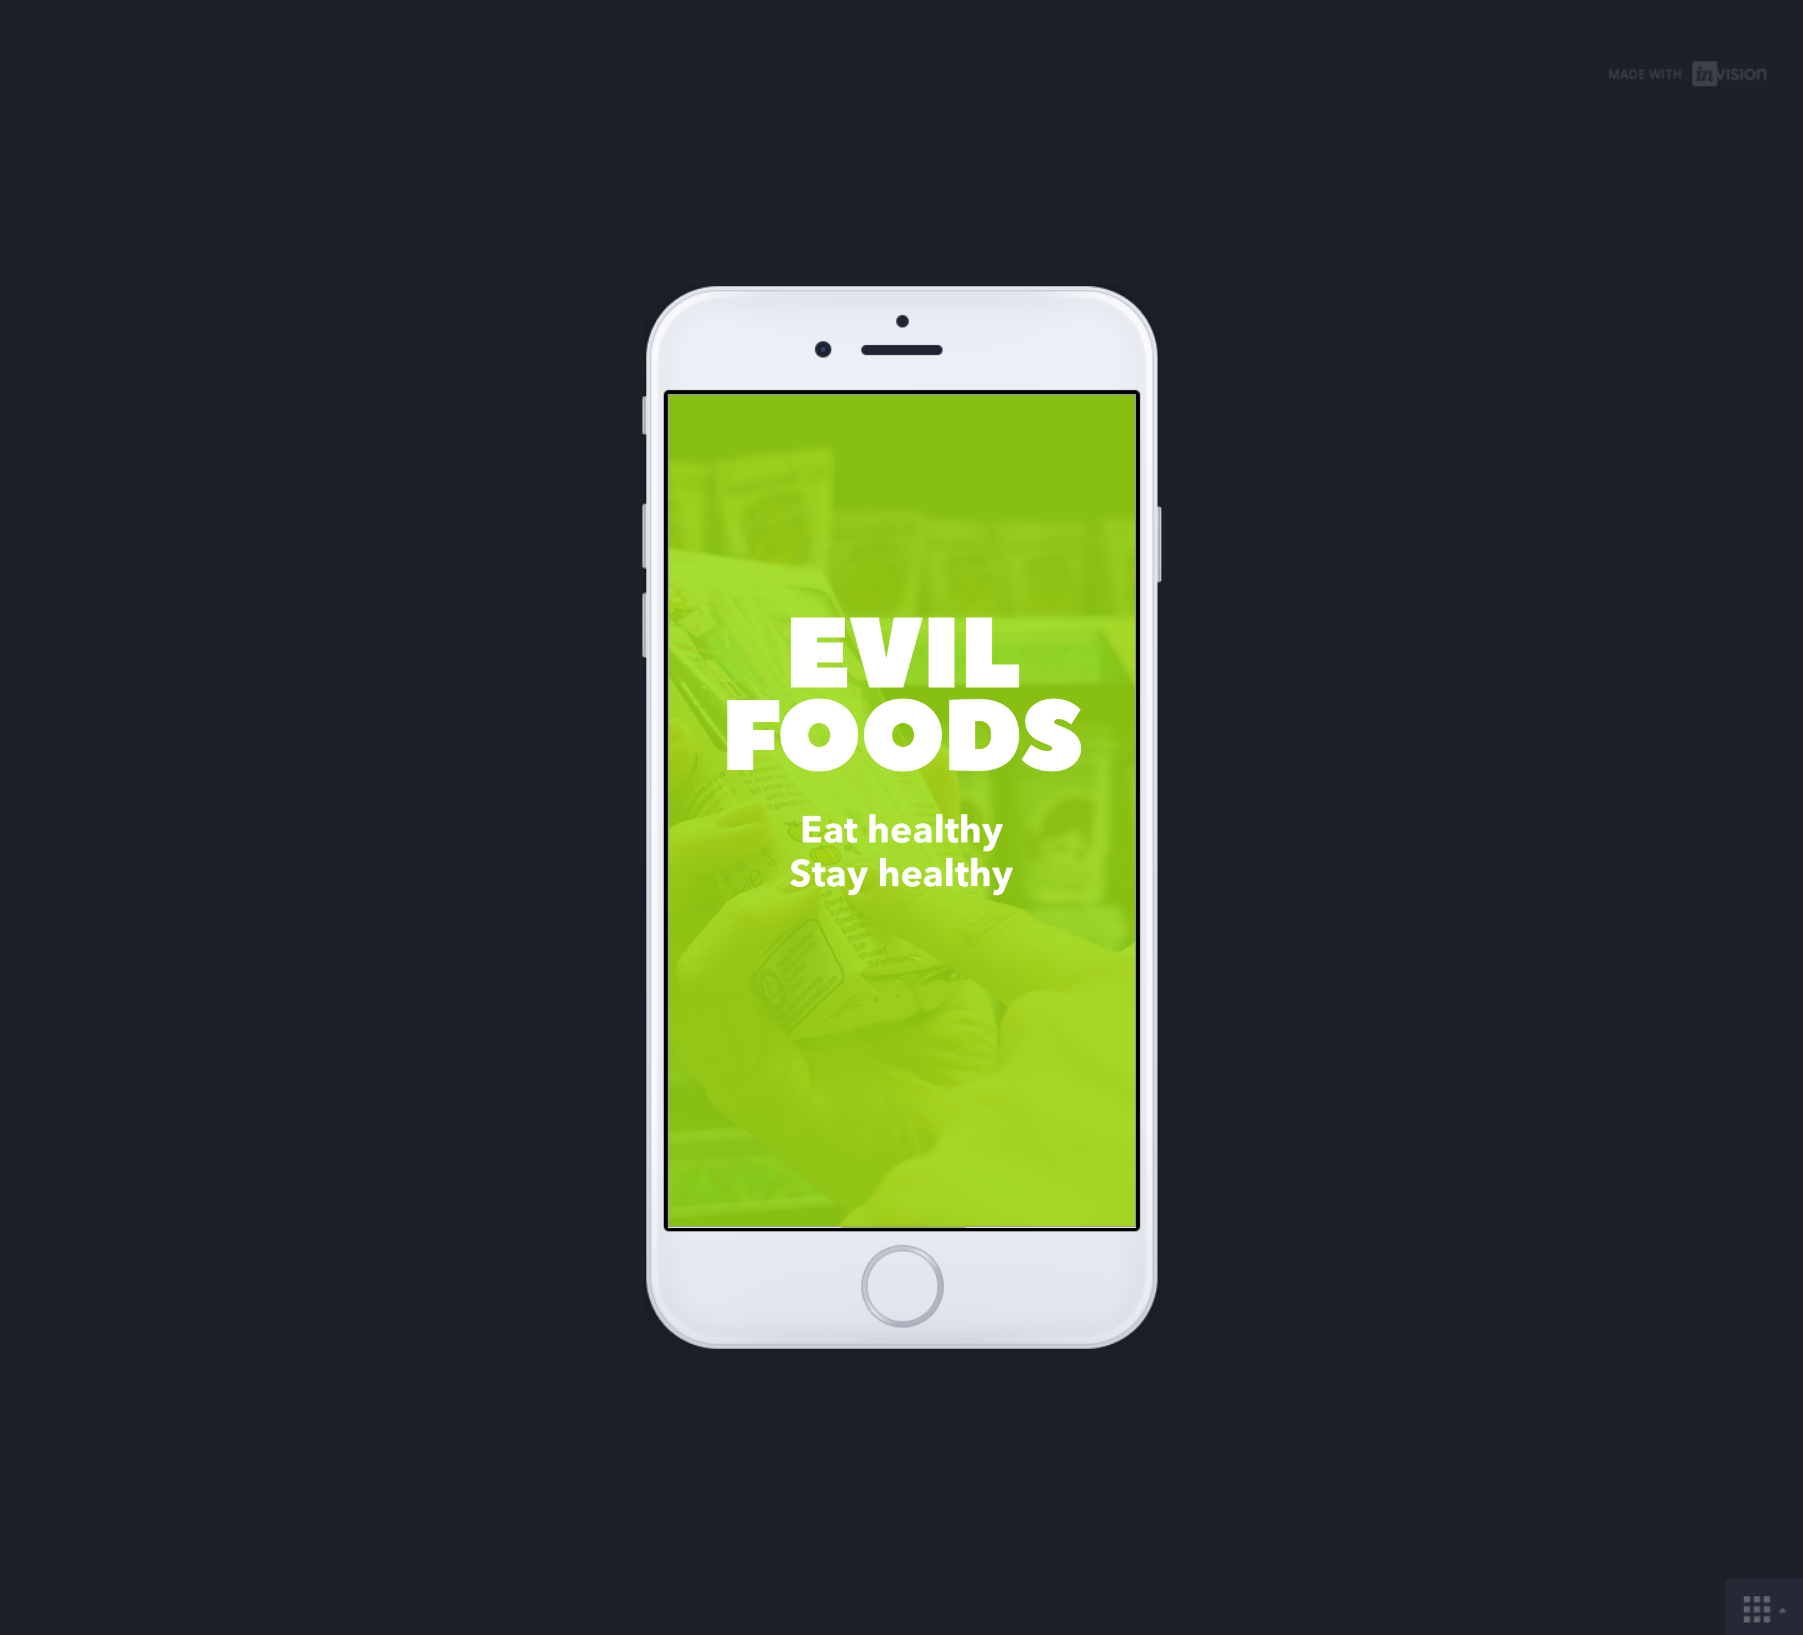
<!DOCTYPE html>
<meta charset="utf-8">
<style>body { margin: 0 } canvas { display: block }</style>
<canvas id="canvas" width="1803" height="1635"></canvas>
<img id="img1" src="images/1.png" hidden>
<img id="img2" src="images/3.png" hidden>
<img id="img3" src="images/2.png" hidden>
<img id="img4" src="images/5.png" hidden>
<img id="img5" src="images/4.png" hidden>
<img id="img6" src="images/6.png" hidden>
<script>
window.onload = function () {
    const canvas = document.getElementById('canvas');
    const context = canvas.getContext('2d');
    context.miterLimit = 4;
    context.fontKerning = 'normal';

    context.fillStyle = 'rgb(29, 32, 41)';
    context.fillRect(0, 0, 1803, 1635);
    context.drawImage(document.getElementById('img1'), 1608, 61, 159, 26);
    context.drawImage(document.getElementById('img2'), 643, 285, 518, 1065);
    context.drawImage(document.getElementById('img3'), 642, 286, 520, 1063);
    context.drawImage(document.getElementById('img4'), 668, 1227, 468, 1);
    context.drawImage(document.getElementById('img5'), 667, 393, 470, 835);
    context.fillStyle = 'rgb(36, 41, 53)';
    context.beginPath();
    context.moveTo(1731, 1579);
    context.lineTo(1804, 1579);
    context.lineTo(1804, 1635);
    context.lineTo(1725, 1635);
    context.lineTo(1725, 1585);
    context.bezierCurveTo(1725, 1581.5, 1727.5, 1579, 1731, 1579);
    context.closePath();
    context.fill();
    context.drawImage(document.getElementById('img6'), 1743, 1596, 44, 27);
};
</script>
